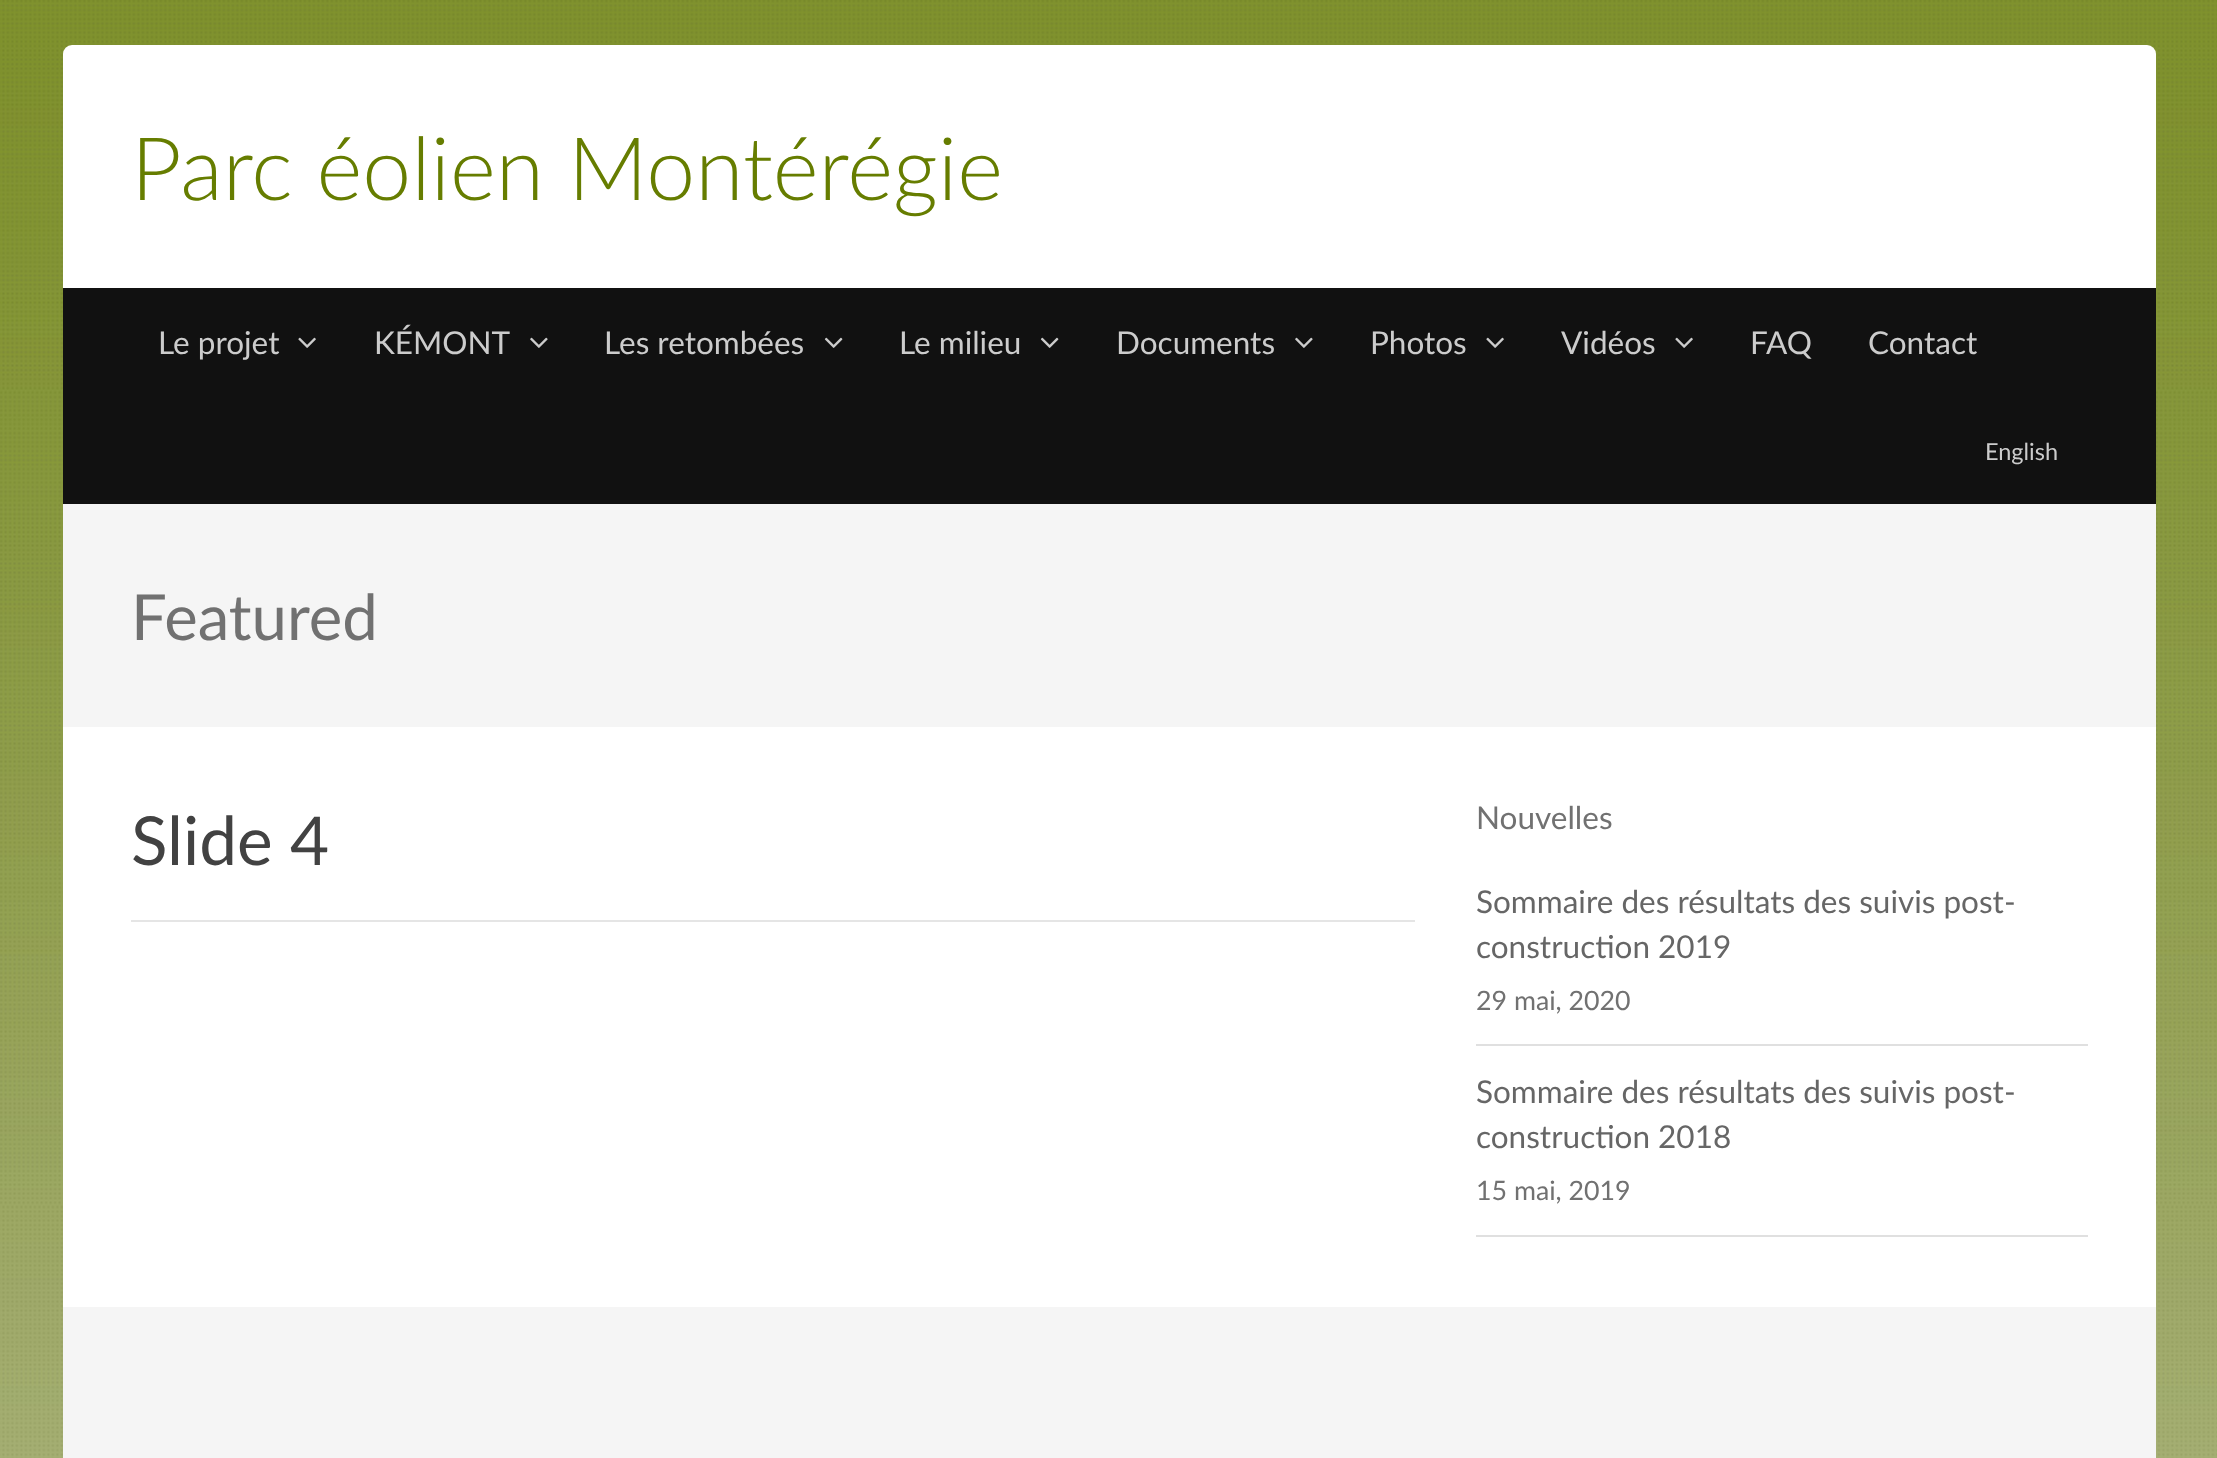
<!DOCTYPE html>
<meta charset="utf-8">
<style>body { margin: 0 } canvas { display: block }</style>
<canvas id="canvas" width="2217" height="1458"></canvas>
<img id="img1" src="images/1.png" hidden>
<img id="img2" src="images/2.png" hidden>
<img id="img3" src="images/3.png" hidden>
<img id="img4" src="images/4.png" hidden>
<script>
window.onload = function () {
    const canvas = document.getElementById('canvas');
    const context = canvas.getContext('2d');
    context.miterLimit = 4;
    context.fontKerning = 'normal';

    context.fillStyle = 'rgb(255, 255, 255)';
    context.fillRect(0, 0, 2217, 1458);
    context.drawImage(document.getElementById('img1'), 0, 0, 2217, 1458);
    context.beginPath();
    context.roundRect(63, 45, 2093, 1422, 9);
    context.fill();
    context.fillStyle = 'rgb(17, 17, 17)';
    context.fillRect(63, 288, 2093, 216);
    context.drawImage(document.getElementById('img2'), 298, 337, 18, 11);
    context.drawImage(document.getElementById('img3'), 530, 337, 18, 11);
    context.drawImage(document.getElementById('img4'), 824, 337, 19, 11);
    context.drawImage(document.getElementById('img4'), 1040, 337, 19, 11);
    context.drawImage(document.getElementById('img3'), 1295, 337, 18, 11);
    context.drawImage(document.getElementById('img2'), 1486, 337, 18, 11);
    context.drawImage(document.getElementById('img2'), 1675, 337, 18, 11);
    context.fillStyle = 'rgb(245, 245, 245)';
    context.fillRect(63, 504, 2093, 223);
    context.fillStyle = 'rgb(229, 229, 229)';
    context.fillRect(131, 920, 1284, 2);
    context.fillStyle = 'rgb(224, 224, 224)';
    context.fillRect(1476, 1044, 612, 2);
    context.fillRect(1476, 1235, 612, 2);
    context.fillStyle = 'rgb(245, 245, 245)';
    context.fillRect(63, 1307, 2093, 151);
    context.font = '300 87.75px Lato';
    context.fillStyle = 'rgb(102, 125, 0)';
    context.fillText('Parc éolien Montérégie', 131, 200);
    context.font = '31.5px Lato';
    context.fillStyle = 'rgb(204, 204, 204)';
    context.fillText('Le projet', 158, 354);
    context.fillText('KÉMONT', 374, 354);
    context.fillText('Les retombées', 604, 354);
    context.fillText('Le milieu', 899, 354);
    context.fillText('Documents', 1116, 354);
    context.fillText('Photos', 1370, 354);
    context.fillText('Vidéos', 1561, 354);
    context.fillText('FAQ', 1750, 354);
    context.fillText('Contact', 1868, 354);
    context.font = '23.5px Lato';
    context.fillText('English', 1985, 460);
    context.font = '63.5px Lato';
    context.fillStyle = 'rgb(113, 113, 113)';
    context.fillText('Featured', 131, 640);
    context.font = '67.5px Lato';
    context.fillStyle = 'rgb(66, 66, 66)';
    context.fillText('Slide 4', 131, 865);
    context.font = '31.5px Lato';
    context.fillStyle = 'rgb(113, 113, 113)';
    context.fillText('Nouvelles', 1476, 829);
    context.fillStyle = 'rgb(102, 102, 102)';
    context.fillText('Sommaire des résultats des suivis post-', 1476, 913);
    context.fillText('construction 2019', 1476, 958);
    context.font = '26.75px Lato';
    context.fillStyle = 'rgb(113, 113, 113)';
    context.fillText('29 mai, 2020', 1476, 1010);
    context.font = '31.5px Lato';
    context.fillStyle = 'rgb(102, 102, 102)';
    context.fillText('Sommaire des résultats des suivis post-', 1476, 1103);
    context.fillText('construction 2018', 1476, 1148);
    context.font = '26.75px Lato';
    context.fillStyle = 'rgb(113, 113, 113)';
    context.fillText('15 mai, 2019', 1476, 1200);
};
</script>
